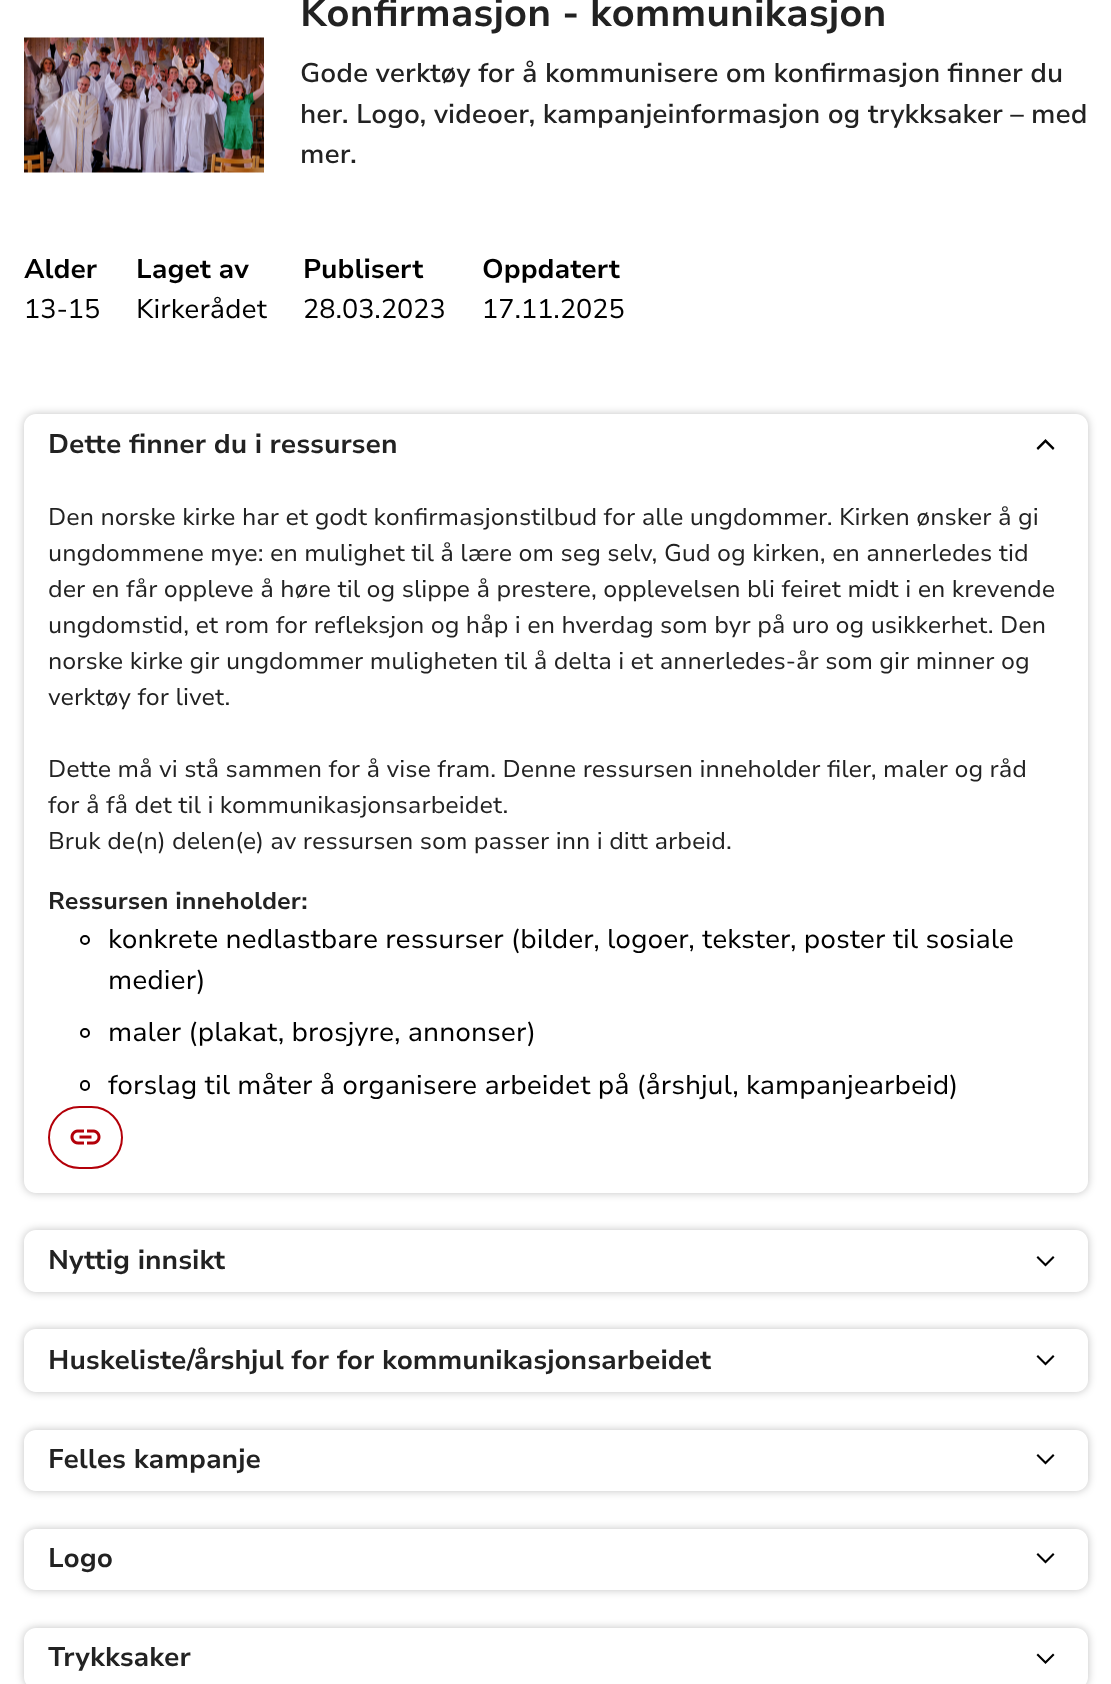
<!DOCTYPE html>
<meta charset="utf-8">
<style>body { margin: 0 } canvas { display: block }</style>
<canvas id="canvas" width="1111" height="1684"></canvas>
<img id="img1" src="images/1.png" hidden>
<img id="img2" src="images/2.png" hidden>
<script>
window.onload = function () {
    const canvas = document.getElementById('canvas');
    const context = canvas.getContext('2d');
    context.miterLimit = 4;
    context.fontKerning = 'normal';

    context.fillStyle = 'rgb(255, 255, 255)';
    context.fillRect(0, 0, 1111, 1684);
    context.drawImage(document.getElementById('img1'), 24, 37, 240, 136);
    context.save();
    context.beginPath();
    context.moveTo(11, 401);
    context.lineTo(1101, 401);
    context.lineTo(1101, 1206);
    context.lineTo(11, 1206);
    context.closePath();
    context.moveTo(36, 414);
    context.lineTo(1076, 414);
    context.bezierCurveTo(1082.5, 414, 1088, 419.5, 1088, 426);
    context.lineTo(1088, 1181);
    context.bezierCurveTo(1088, 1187.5, 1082.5, 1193, 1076, 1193);
    context.lineTo(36, 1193);
    context.bezierCurveTo(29.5, 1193, 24, 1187.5, 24, 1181);
    context.lineTo(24, 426);
    context.bezierCurveTo(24, 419.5, 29.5, 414, 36, 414);
    context.closePath();
    context.clip('evenodd');
    context.fillStyle = 'rgba(0, 0, 0, 0.24)';
    context.filter = 'blur(4px)';
    context.beginPath();
    context.roundRect(24, 414, 1064, 779, 12);
    context.fill();
    context.filter = 'none';
    context.restore();
    context.fillStyle = 'rgb(0, 0, 0)';
    context.beginPath();
    context.moveTo(1045.5, 439);
    context.lineTo(1054.5, 448);
    context.lineTo(1053, 450);
    context.lineTo(1045.5, 442.5);
    context.lineTo(1038, 450);
    context.lineTo(1036.5, 448);
    context.closePath();
    context.fill();
    context.beginPath();
    context.arc(85, 940, 4, 0, 2 * Math.PI);
    context.strokeStyle = 'rgb(0, 0, 0)';
    context.lineWidth = 2;
    context.stroke();
    context.beginPath();
    context.arc(85, 1033, 4, 0, 2 * Math.PI);
    context.stroke();
    context.beginPath();
    context.roundRect(81, 1081, 8, 9, 4);
    context.stroke();
    context.beginPath();
    context.roundRect(49, 1107, 73, 61, 30.5);
    context.strokeStyle = 'rgb(179, 0, 9)';
    context.stroke();
    context.drawImage(document.getElementById('img2'), 70, 1129, 31, 16);
    context.save();
    context.beginPath();
    context.moveTo(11, 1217);
    context.lineTo(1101, 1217);
    context.lineTo(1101, 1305);
    context.lineTo(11, 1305);
    context.closePath();
    context.moveTo(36, 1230);
    context.lineTo(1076, 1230);
    context.bezierCurveTo(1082.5, 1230, 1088, 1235.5, 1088, 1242);
    context.lineTo(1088, 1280);
    context.bezierCurveTo(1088, 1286.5, 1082.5, 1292, 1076, 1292);
    context.lineTo(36, 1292);
    context.bezierCurveTo(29.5, 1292, 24, 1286.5, 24, 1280);
    context.lineTo(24, 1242);
    context.bezierCurveTo(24, 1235.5, 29.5, 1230, 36, 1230);
    context.closePath();
    context.clip('evenodd');
    context.fillStyle = 'rgba(0, 0, 0, 0.24)';
    context.filter = 'blur(4px)';
    context.beginPath();
    context.roundRect(24, 1230, 1064, 62, 12);
    context.fill();
    context.filter = 'none';
    context.restore();
    context.beginPath();
    context.moveTo(1045.5, 1266.5);
    context.lineTo(1036.5, 1257.5);
    context.lineTo(1038, 1256);
    context.lineTo(1045.5, 1263.5);
    context.lineTo(1053, 1256);
    context.lineTo(1054.5, 1257.5);
    context.closePath();
    context.fill();
    context.save();
    context.beginPath();
    context.moveTo(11, 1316);
    context.lineTo(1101, 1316);
    context.lineTo(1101, 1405);
    context.lineTo(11, 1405);
    context.closePath();
    context.moveTo(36, 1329);
    context.lineTo(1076, 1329);
    context.bezierCurveTo(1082.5, 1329, 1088, 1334.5, 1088, 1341);
    context.lineTo(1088, 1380);
    context.bezierCurveTo(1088, 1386.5, 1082.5, 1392, 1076, 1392);
    context.lineTo(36, 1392);
    context.bezierCurveTo(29.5, 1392, 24, 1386.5, 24, 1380);
    context.lineTo(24, 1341);
    context.bezierCurveTo(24, 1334.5, 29.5, 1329, 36, 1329);
    context.closePath();
    context.clip('evenodd');
    context.fillStyle = 'rgba(0, 0, 0, 0.24)';
    context.filter = 'blur(4px)';
    context.beginPath();
    context.roundRect(24, 1329, 1064, 63, 12);
    context.fill();
    context.filter = 'none';
    context.restore();
    context.beginPath();
    context.moveTo(1045.5, 1365.5);
    context.lineTo(1036.5, 1356.5);
    context.lineTo(1038, 1355);
    context.lineTo(1045.5, 1362.5);
    context.lineTo(1053, 1355);
    context.lineTo(1054.5, 1356.5);
    context.closePath();
    context.fill();
    context.save();
    context.beginPath();
    context.moveTo(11, 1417);
    context.lineTo(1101, 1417);
    context.lineTo(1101, 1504);
    context.lineTo(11, 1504);
    context.closePath();
    context.moveTo(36, 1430);
    context.lineTo(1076, 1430);
    context.bezierCurveTo(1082.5, 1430, 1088, 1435.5, 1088, 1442);
    context.lineTo(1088, 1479);
    context.bezierCurveTo(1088, 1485.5, 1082.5, 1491, 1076, 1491);
    context.lineTo(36, 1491);
    context.bezierCurveTo(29.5, 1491, 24, 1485.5, 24, 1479);
    context.lineTo(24, 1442);
    context.bezierCurveTo(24, 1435.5, 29.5, 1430, 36, 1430);
    context.closePath();
    context.clip('evenodd');
    context.fillStyle = 'rgba(0, 0, 0, 0.24)';
    context.filter = 'blur(4px)';
    context.beginPath();
    context.roundRect(24, 1430, 1064, 61, 12);
    context.fill();
    context.filter = 'none';
    context.restore();
    context.beginPath();
    context.moveTo(1045.5, 1464.5);
    context.lineTo(1036.5, 1455.5);
    context.lineTo(1038, 1454);
    context.lineTo(1045.5, 1461.5);
    context.lineTo(1053, 1454);
    context.lineTo(1054.5, 1455.5);
    context.closePath();
    context.fill();
    context.save();
    context.beginPath();
    context.moveTo(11, 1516);
    context.lineTo(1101, 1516);
    context.lineTo(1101, 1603);
    context.lineTo(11, 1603);
    context.closePath();
    context.moveTo(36, 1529);
    context.lineTo(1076, 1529);
    context.bezierCurveTo(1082.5, 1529, 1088, 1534.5, 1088, 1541);
    context.lineTo(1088, 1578);
    context.bezierCurveTo(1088, 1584.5, 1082.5, 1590, 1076, 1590);
    context.lineTo(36, 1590);
    context.bezierCurveTo(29.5, 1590, 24, 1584.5, 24, 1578);
    context.lineTo(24, 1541);
    context.bezierCurveTo(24, 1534.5, 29.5, 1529, 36, 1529);
    context.closePath();
    context.clip('evenodd');
    context.fillStyle = 'rgba(0, 0, 0, 0.24)';
    context.filter = 'blur(4px)';
    context.beginPath();
    context.roundRect(24, 1529, 1064, 61, 12);
    context.fill();
    context.filter = 'none';
    context.restore();
    context.beginPath();
    context.moveTo(1045.5, 1563.5);
    context.lineTo(1036.5, 1554.5);
    context.lineTo(1038, 1553);
    context.lineTo(1045.5, 1560.5);
    context.lineTo(1053, 1553);
    context.lineTo(1054.5, 1554.5);
    context.closePath();
    context.fill();
    context.save();
    context.beginPath();
    context.moveTo(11, 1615);
    context.lineTo(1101, 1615);
    context.lineTo(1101, 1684);
    context.lineTo(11, 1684);
    context.closePath();
    context.moveTo(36, 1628);
    context.lineTo(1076, 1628);
    context.bezierCurveTo(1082.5, 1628, 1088, 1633.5, 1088, 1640);
    context.lineTo(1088, 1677);
    context.bezierCurveTo(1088, 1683.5, 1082.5, 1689, 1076, 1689);
    context.lineTo(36, 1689);
    context.bezierCurveTo(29.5, 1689, 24, 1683.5, 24, 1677);
    context.lineTo(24, 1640);
    context.bezierCurveTo(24, 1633.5, 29.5, 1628, 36, 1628);
    context.closePath();
    context.clip('evenodd');
    context.fillStyle = 'rgba(0, 0, 0, 0.24)';
    context.filter = 'blur(4px)';
    context.beginPath();
    context.roundRect(24, 1628, 1064, 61, 12);
    context.fill();
    context.filter = 'none';
    context.restore();
    context.beginPath();
    context.moveTo(1045.5, 1664);
    context.lineTo(1036.5, 1655);
    context.lineTo(1038, 1653.5);
    context.lineTo(1045.5, 1661);
    context.lineTo(1053, 1653.5);
    context.lineTo(1054.5, 1655);
    context.closePath();
    context.fill();
    context.font = 'bold 39px Nunito Sans';
    context.fillStyle = 'rgb(34, 34, 34)';
    context.fillText('Konfirmasjon - kommunikasjon', 300, 26);
    context.font = '600 27px Nunito Sans';
    context.fillText('Gode verktøy for å kommunisere om konfirmasjon finner du', 300, 82);
    context.fillText('her. Logo, videoer, kampanjeinformasjon og trykksaker – med', 300, 123);
    context.fillText('mer.', 300, 163);
    context.font = 'bold 27px Nunito Sans';
    context.fillStyle = 'rgb(0, 0, 0)';
    context.fillText('Alder', 24, 278);
    context.font = '27px Nunito Sans';
    context.fillText('13-15', 24, 318);
    context.font = 'bold 27px Nunito Sans';
    context.fillText('Laget av', 136, 278);
    context.font = '27px Nunito Sans';
    context.fillText('Kirkerådet', 136, 318);
    context.font = 'bold 27px Nunito Sans';
    context.fillText('Publisert', 303, 278);
    context.font = '27px Nunito Sans';
    context.fillText('28.03.2023', 303, 318);
    context.font = 'bold 27px Nunito Sans';
    context.fillText('Oppdatert', 482, 278);
    context.font = '27px Nunito Sans';
    context.fillText('17.11.2025', 482, 318);
    context.font = 'bold 27px Nunito Sans';
    context.fillStyle = 'rgb(34, 34, 34)';
    context.fillText('Dette finner du i ressursen', 48, 453);
    context.font = '24px Nunito Sans';
    context.fillText('Den norske kirke har et godt konfirmasjonstilbud for alle ungdommer. Kirken ønsker å gi', 48, 525);
    context.fillText('ungdommene mye: en mulighet til å lære om seg selv, Gud og kirken, en annerledes tid', 48, 561);
    context.fillText('der en får oppleve å høre til og slippe å prestere, opplevelsen bli feiret midt i en krevende', 48, 597);
    context.fillText('ungdomstid, et rom for refleksjon og håp i en hverdag som byr på uro og usikkerhet. Den', 48, 633);
    context.fillText('norske kirke gir ungdommer muligheten til å delta i et annerledes-år som gir minner og', 48, 669);
    context.fillText('verktøy for livet.', 48, 705);
    context.fillText('Dette må vi stå sammen for å vise fram. Denne ressursen inneholder filer, maler og råd', 48, 777);
    context.fillText('for å få det til i kommunikasjonsarbeidet.', 48, 813);
    context.fillText('Bruk de(n) delen(e) av ressursen som passer inn i ditt arbeid.', 48, 849);
    context.font = 'bold 24px Nunito Sans';
    context.fillText('Ressursen inneholder:', 48, 909);
    context.font = '27px Nunito Sans';
    context.fillStyle = 'rgb(0, 0, 0)';
    context.fillText('konkrete nedlastbare ressurser (bilder, logoer, tekster, poster til sosiale', 108, 948);
    context.fillText('medier)', 108, 989);
    context.fillText('maler (plakat, brosjyre, annonser)', 108, 1041);
    context.fillText('forslag til måter å organisere arbeidet på (årshjul, kampanjearbeid)', 108, 1094);
    context.font = 'bold 27px Nunito Sans';
    context.fillStyle = 'rgb(34, 34, 34)';
    context.fillText('Nyttig innsikt', 48, 1269);
    context.fillText('Huskeliste/årshjul for for kommunikasjonsarbeidet', 48, 1369);
    context.fillText('Felles kampanje', 48, 1468);
    context.fillText('Logo', 48, 1567);
    context.fillText('Trykksaker', 48, 1666);
};
</script>
